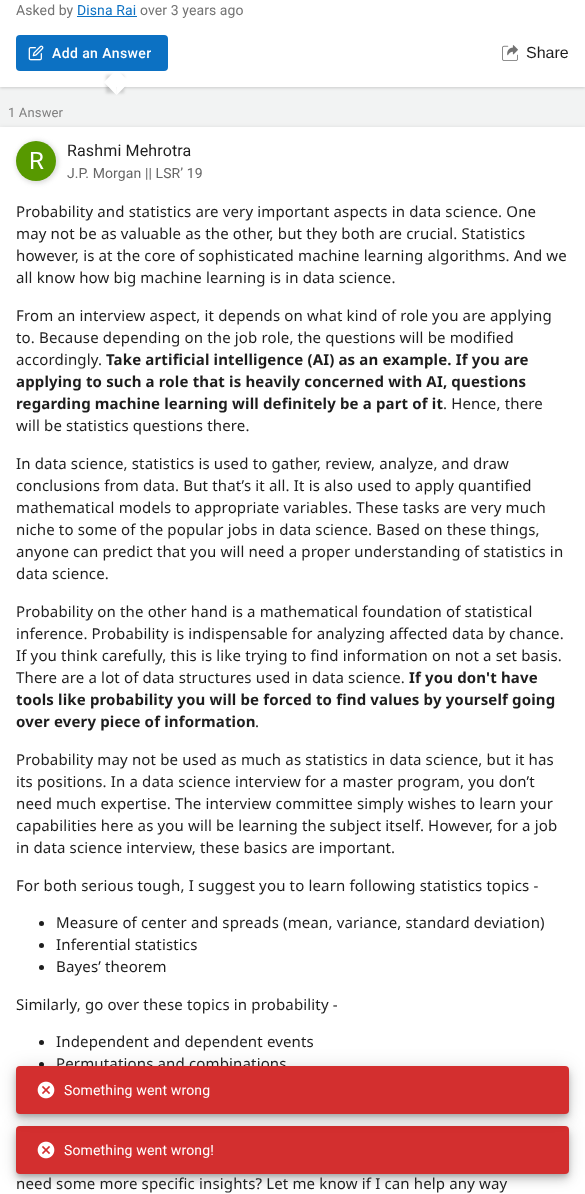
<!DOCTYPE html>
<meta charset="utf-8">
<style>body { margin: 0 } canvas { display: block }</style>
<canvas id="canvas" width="585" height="1194"></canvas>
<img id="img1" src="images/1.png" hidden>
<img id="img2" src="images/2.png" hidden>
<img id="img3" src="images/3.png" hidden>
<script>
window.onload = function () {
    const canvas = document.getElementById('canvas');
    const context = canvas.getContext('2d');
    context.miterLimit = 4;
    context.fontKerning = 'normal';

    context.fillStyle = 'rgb(242, 243, 243)';
    context.fillRect(0, 0, 585, 1194);
    context.fillStyle = 'rgba(0, 0, 0, 0.16)';
    context.filter = 'blur(1.5px)';
    context.beginPath();
    context.rect(0, -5, 585, 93);
    context.fill();
    context.filter = 'none';
    context.fillStyle = 'rgb(255, 255, 255)';
    context.fillRect(0, 0, 585, 87);
    context.fillStyle = 'rgb(12, 113, 195)';
    context.fillRect(77, 16, 60, 1);
    context.beginPath();
    context.roundRect(16, 35, 152, 36, 4);
    context.fill();
    context.drawImage(document.getElementById('img1'), 28, 45, 16, 16);
    context.drawImage(document.getElementById('img2'), 502, 45, 16, 16);
    context.save();
    context.beginPath();
    context.moveTo(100, 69);
    context.lineTo(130, 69);
    context.lineTo(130, 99);
    context.lineTo(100, 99);
    context.closePath();
    context.moveTo(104, 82);
    context.lineTo(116.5, 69.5);
    context.lineTo(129.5, 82);
    context.lineTo(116.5, 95);
    context.closePath();
    context.clip('evenodd');
    context.fillStyle = 'rgba(0, 0, 0, 0.16)';
    context.filter = 'blur(1.5px)';
    context.beginPath();
    context.rect(106, 75, 18, 18);
    context.fill();
    context.filter = 'none';
    context.restore();
    context.fillStyle = 'rgb(255, 255, 255)';
    context.beginPath();
    context.moveTo(129.5, 82);
    context.lineTo(116.5, 95);
    context.lineTo(116.5, 82);
    context.closePath();
    context.fill();
    context.beginPath();
    context.moveTo(116.5, 95);
    context.lineTo(104, 82);
    context.lineTo(116.5, 82);
    context.closePath();
    context.fill();
    context.fillStyle = 'rgba(0, 0, 0, 0.12)';
    context.filter = 'blur(2.5px)';
    context.beginPath();
    context.rect(0, 128, 585, 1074);
    context.fill();
    context.filter = 'none';
    context.fillStyle = 'rgb(255, 255, 255)';
    context.fillRect(0, 127, 585, 1067);
    context.fillStyle = 'rgba(203, 203, 203, 0.75)';
    context.filter = 'blur(2.5px)';
    context.beginPath();
    context.roundRect(16, 141, 42, 42, 21);
    context.fill();
    context.filter = 'none';
    context.fillStyle = 'rgb(87, 153, 0)';
    context.beginPath();
    context.arc(36, 161, 20, 0, 2 * Math.PI);
    context.fill();
    context.fillStyle = 'rgb(30, 30, 30)';
    context.beginPath();
    context.arc(41.5, 923.5, 2.5, 0, 2 * Math.PI);
    context.fill();
    context.beginPath();
    context.arc(41.5, 945.5, 2.5, 0, 2 * Math.PI);
    context.fill();
    context.beginPath();
    context.arc(41.5, 967.5, 2.5, 0, 2 * Math.PI);
    context.fill();
    context.beginPath();
    context.arc(41.5, 1042.5, 2.5, 0, 2 * Math.PI);
    context.fill();
    context.beginPath();
    context.arc(41.5, 1064.5, 2.5, 0, 2 * Math.PI);
    context.fill();
    context.fillStyle = 'rgba(0, 0, 0, 0.12)';
    context.filter = 'blur(9px)';
    context.beginPath();
    context.roundRect(16, 1127, 553, 48, 4);
    context.fill();
    context.filter = 'none';
    context.fillStyle = 'rgba(0, 0, 0, 0.14)';
    context.filter = 'blur(5px)';
    context.beginPath();
    context.roundRect(16, 1132, 553, 48, 4);
    context.fill();
    context.filter = 'none';
    context.fillStyle = 'rgba(0, 0, 0, 0.2)';
    context.filter = 'blur(2.5px)';
    context.beginPath();
    context.roundRect(17, 1130, 551, 46, 3);
    context.fill();
    context.filter = 'none';
    context.fillStyle = 'rgb(211, 47, 47)';
    context.beginPath();
    context.roundRect(16, 1126, 553, 48, 4);
    context.fill();
    context.drawImage(document.getElementById('img3'), 37, 1141, 18, 18);
    context.fillStyle = 'rgba(0, 0, 0, 0.12)';
    context.filter = 'blur(9px)';
    context.beginPath();
    context.roundRect(16, 1067, 553, 48, 4);
    context.fill();
    context.filter = 'none';
    context.fillStyle = 'rgba(0, 0, 0, 0.14)';
    context.filter = 'blur(5px)';
    context.beginPath();
    context.roundRect(16, 1072, 553, 48, 4);
    context.fill();
    context.filter = 'none';
    context.fillStyle = 'rgba(0, 0, 0, 0.2)';
    context.filter = 'blur(2.5px)';
    context.beginPath();
    context.roundRect(17, 1070, 551, 46, 3);
    context.fill();
    context.filter = 'none';
    context.letterSpacing = '0.1px';
    context.font = '14px Roboto';
    context.fillStyle = 'rgb(115, 115, 115)';
    context.fillText('Asked by', 16, 15);
    context.fillStyle = 'rgb(12, 113, 195)';
    context.fillText('Disna Rai', 77, 15);
    context.fillStyle = 'rgb(115, 115, 115)';
    context.fillText('over 3 years ago', 140, 15);
    context.letterSpacing = '0.4px';
    context.font = '500 14px Roboto';
    context.fillStyle = 'rgb(255, 255, 255)';
    context.fillText('Add an Answer', 52, 58);
    context.letterSpacing = '0px';
    context.font = '16px Liberation Sans';
    context.fillStyle = 'rgb(30, 30, 30)';
    context.fillText('Share', 526, 58);
    context.letterSpacing = '0.15px';
    context.font = '13px Roboto';
    context.fillStyle = 'rgb(128, 128, 128)';
    context.fillText('1 Answer', 8, 117);
    context.font = '24px Roboto';
    context.fillStyle = 'rgb(255, 255, 255)';
    context.fillText('R', 29, 169);
    context.font = '16px Roboto';
    context.fillStyle = 'rgb(30, 30, 30)';
    context.fillText('Rashmi Mehrotra', 67, 156);
    context.letterSpacing = '0.1px';
    context.font = '14px Roboto';
    context.fillStyle = 'rgb(102, 102, 102)';
    context.fillText('J.P. Morgan || LSR’ 19', 67, 178);
    context.letterSpacing = '0.15px';
    context.font = '15px Noto Sans';
    context.fillStyle = 'rgb(30, 30, 30)';
    context.fillText('Probability and statistics are very important aspects in data science. One', 16, 217);
    context.fillText('may not be as valuable as the other, but they both are crucial. Statistics', 16, 239);
    context.fillText('however, is at the core of sophisticated machine learning algorithms. And we', 16, 261);
    context.fillText('all know how big machine learning is in data science.', 16, 283);
    context.fillText('From an interview aspect, it depends on what kind of role you are applying', 16, 321);
    context.fillText('to. Because depending on the job role, the questions will be modified', 16, 343);
    context.fillText('accordingly.', 16, 365);
    context.font = 'bold 15px Noto Sans';
    context.fillText('Take artificial intelligence (AI) as an example. If you are', 106, 365);
    context.fillText('applying to such a role that is heavily concerned with AI, questions', 16, 387);
    context.fillText('regarding machine learning will definitely be a part of it', 16, 409);
    context.font = '15px Noto Sans';
    context.fillText('. Hence, there', 443, 409);
    context.fillText('will be statistics questions there.', 16, 431);
    context.fillText('In data science, statistics is used to gather, review, analyze, and draw', 16, 469);
    context.fillText('conclusions from data. But that’s it all. It is also used to apply quantified', 16, 491);
    context.fillText('mathematical models to appropriate variables. These tasks are very much', 16, 513);
    context.fillText('niche to some of the popular jobs in data science. Based on these things,', 16, 535);
    context.fillText('anyone can predict that you will need a proper understanding of statistics in', 16, 557);
    context.fillText('data science.', 16, 579);
    context.fillText('Probability on the other hand is a mathematical foundation of statistical', 16, 617);
    context.fillText('inference. Probability is indispensable for analyzing affected data by chance.', 16, 639);
    context.fillText('If you think carefully, this is like trying to find information on not a set basis.', 16, 661);
    context.fillText('There are a lot of data structures used in data science.', 16, 683);
    context.font = 'bold 15px Noto Sans';
    context.fillText('If you don\'t have', 409, 683);
    context.fillText('tools like probability you will be forced to find values by yourself going', 16, 705);
    context.fillText('over every piece of information', 16, 727);
    context.font = '15px Noto Sans';
    context.fillText('.', 255, 727);
    context.fillText('Probability may not be used as much as statistics in data science, but it has', 16, 765);
    context.fillText('its positions. In a data science interview for a master program, you don’t', 16, 787);
    context.fillText('need much expertise. The interview committee simply wishes to learn your', 16, 809);
    context.fillText('capabilities here as you will be learning the subject itself. However, for a job', 16, 831);
    context.fillText('in data science interview, these basics are important.', 16, 853);
    context.fillText('For both serious tough, I suggest you to learn following statistics topics -', 16, 891);
    context.fillText('Measure of center and spreads (mean, variance, standard deviation)', 56, 928);
    context.fillText('Inferential statistics', 56, 950);
    context.fillText('Bayes’ theorem', 56, 972);
    context.fillText('Similarly, go over these topics in probability -', 16, 1010);
    context.fillText('Independent and dependent events', 56, 1047);
    context.fillText('Permutations and combinations', 56, 1069);
    context.fillText('need some more specific insights? Let me know if I can help any way', 16, 1189);
    context.fillStyle = 'rgb(211, 47, 47)';
    context.beginPath();
    context.roundRect(16, 1066, 553, 48, 4);
    context.fill();
    context.drawImage(document.getElementById('img3'), 37, 1081, 18, 18);
    context.font = '14px Roboto';
    context.fillStyle = 'rgb(255, 255, 255)';
    context.fillText('Something went wrong', 64, 1095);
    context.fillText('Something went wrong!', 64, 1155);
};
</script>
